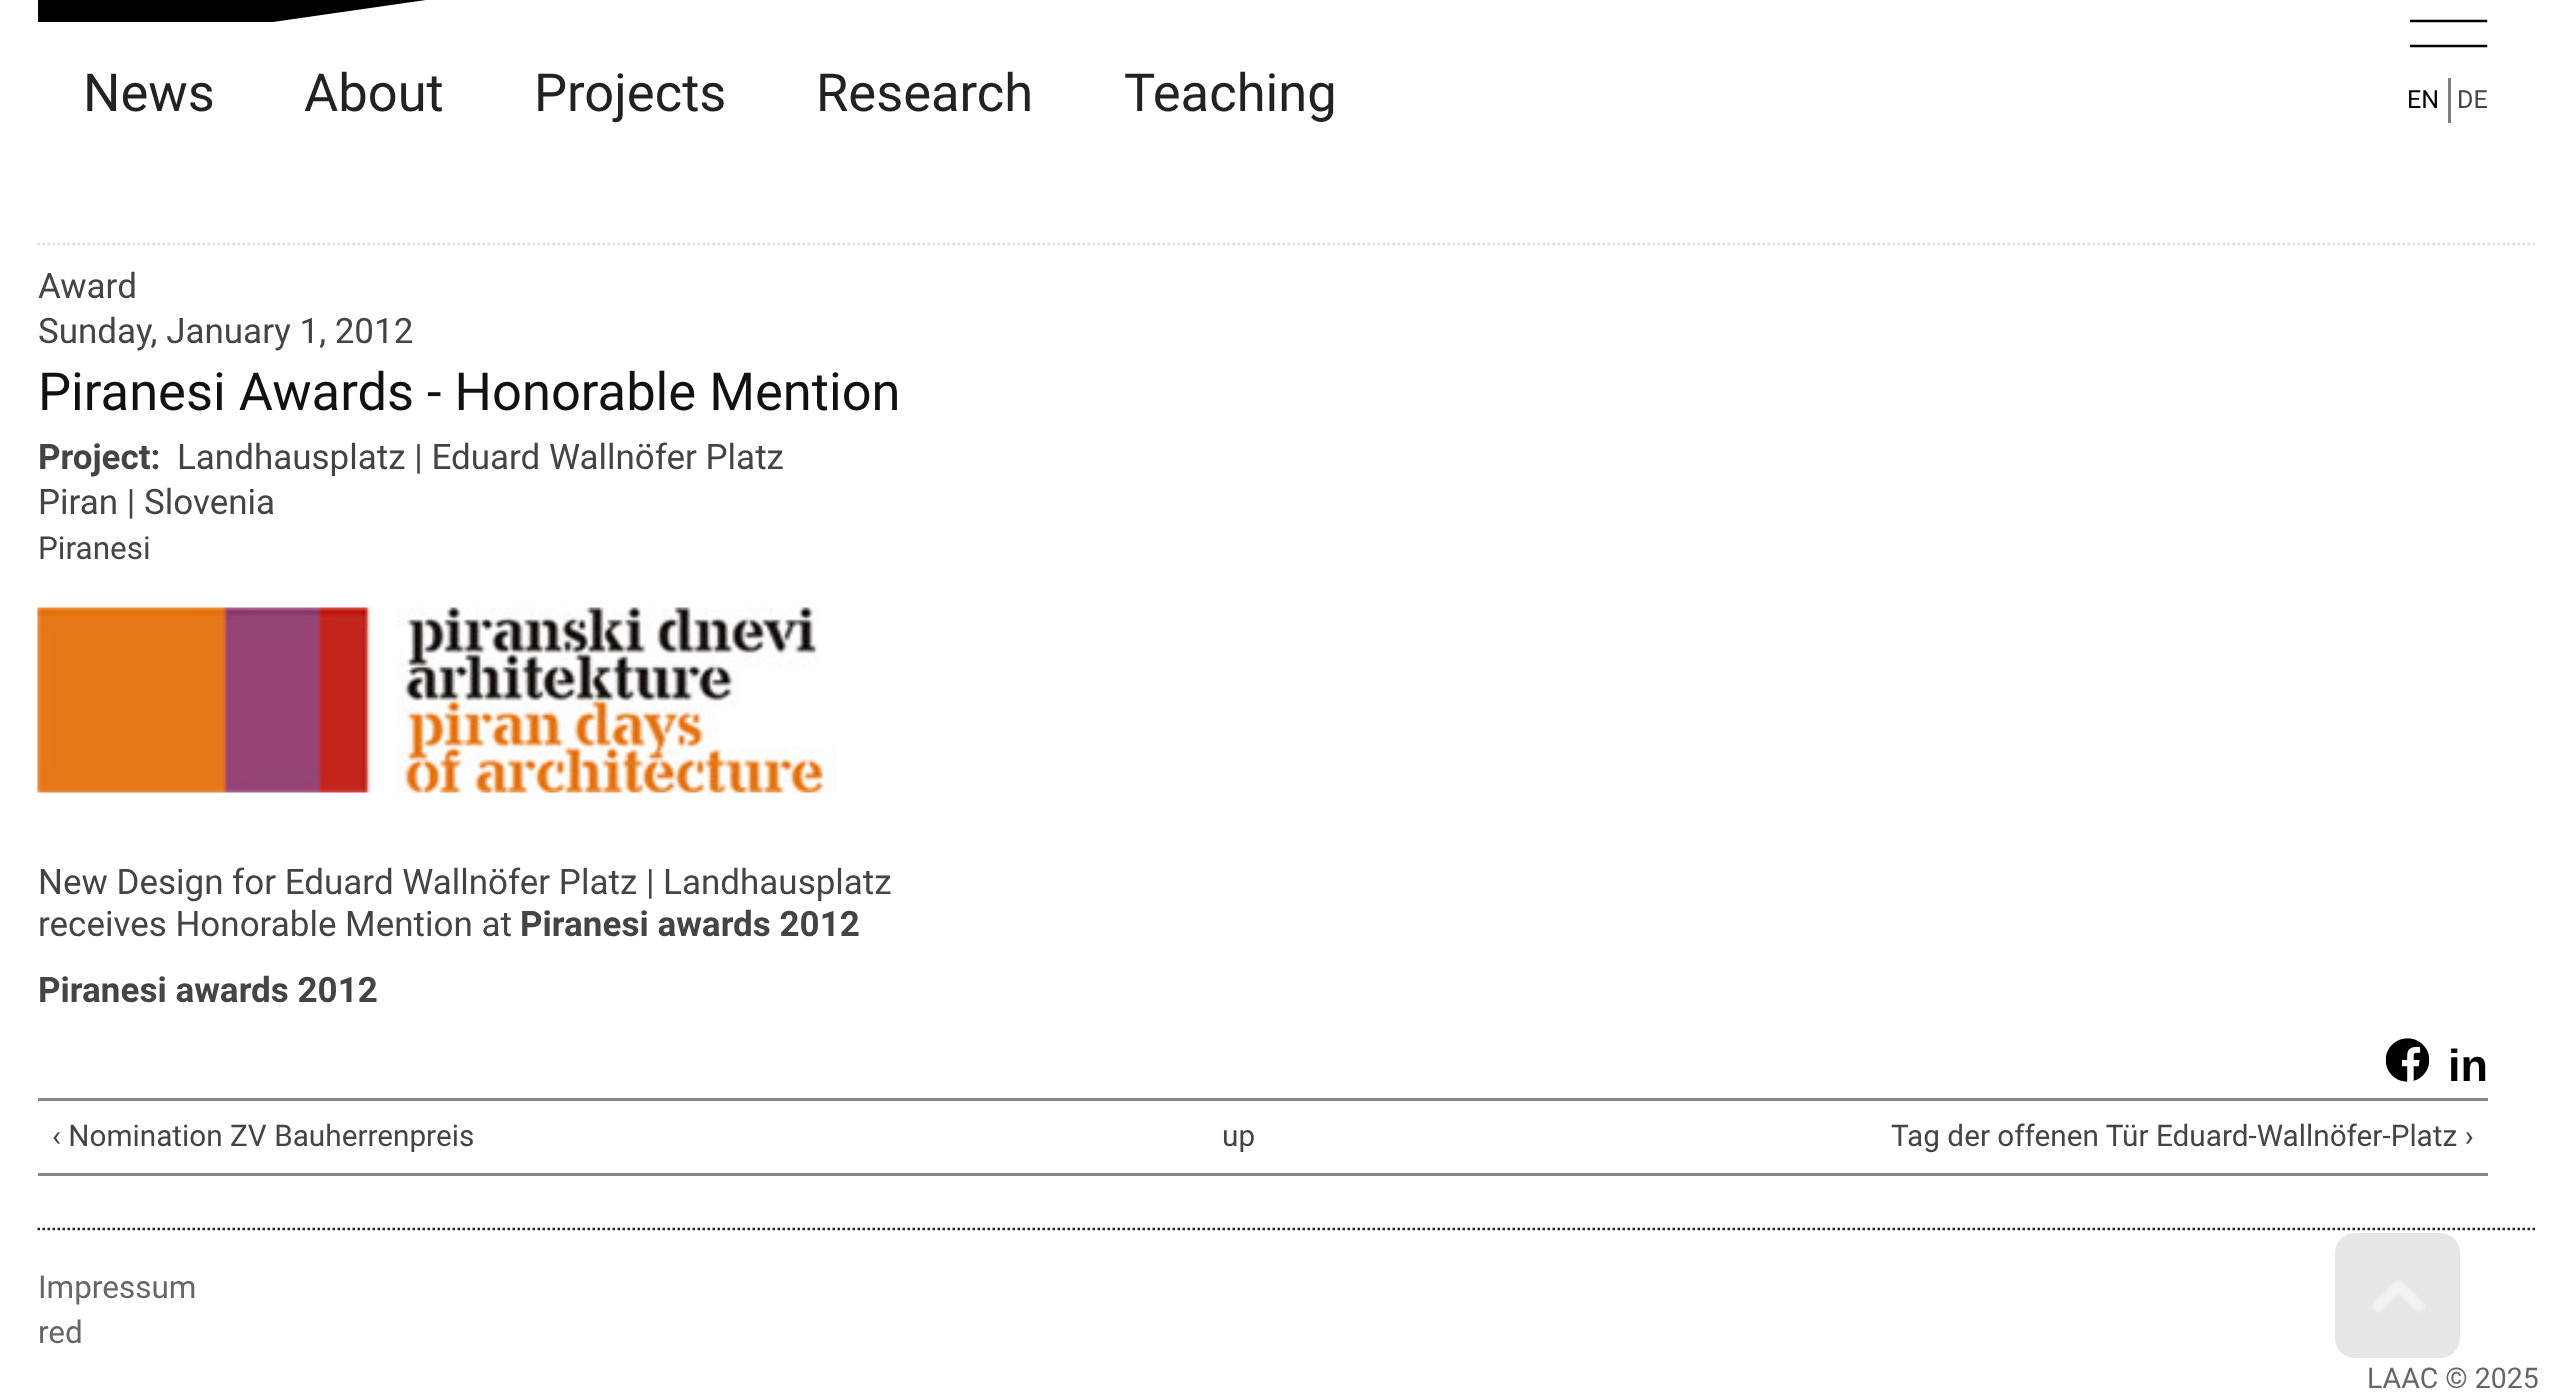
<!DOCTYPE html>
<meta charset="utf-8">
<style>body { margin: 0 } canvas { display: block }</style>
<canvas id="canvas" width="2560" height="1400"></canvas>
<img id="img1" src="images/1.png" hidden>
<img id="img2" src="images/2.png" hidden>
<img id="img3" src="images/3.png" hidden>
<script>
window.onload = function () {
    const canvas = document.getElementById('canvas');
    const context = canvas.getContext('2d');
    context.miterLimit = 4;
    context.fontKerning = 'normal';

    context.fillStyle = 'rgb(255, 255, 255)';
    context.fillRect(0, 0, 2560, 1400);
    context.fillStyle = 'rgb(0, 0, 0)';
    context.beginPath();
    context.moveTo(161, -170);
    context.lineTo(38, -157);
    context.lineTo(38, 22);
    context.lineTo(273, 22);
    context.lineTo(551, -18);
    context.lineTo(551, -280);
    context.closePath();
    context.fill();
    context.save();
    context.beginPath();
    context.rect(2410, 0, 78, 53);
    context.clip();
    context.beginPath();
    context.moveTo(2411, -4);
    context.lineTo(2486, -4);
    context.moveTo(2411, 21);
    context.lineTo(2486, 21);
    context.moveTo(2411, 46);
    context.lineTo(2486, 46);
    context.strokeStyle = 'rgb(0, 0, 0)';
    context.lineWidth = 2.5;
    context.lineCap = 'square';
    context.stroke();
    context.restore();
    context.fillStyle = 'rgb(128, 128, 128)';
    context.fillRect(2448, 78, 3, 45);
    context.beginPath();
    context.moveTo(37.5, 244);
    context.lineTo(2537.5, 244);
    context.strokeStyle = 'rgb(221, 221, 221)';
    context.lineWidth = 2.5;
    context.setLineDash([2.5, 2.5]);
    context.stroke();
    context.drawImage(document.getElementById('img1'), 37, 607, 801, 186);
    context.drawImage(document.getElementById('img2'), 2385, 1038, 45, 44);
    context.fillStyle = 'rgb(136, 136, 136)';
    context.fillRect(38, 1098, 2450, 3);
    context.fillRect(38, 1173, 2450, 3);
    context.beginPath();
    context.moveTo(37.5, 1229);
    context.lineTo(2537.5, 1229);
    context.strokeStyle = 'rgb(34, 34, 34)';
    context.stroke();
    context.fillStyle = 'rgb(230, 230, 230)';
    context.beginPath();
    context.roundRect(2335, 1233, 125, 125, 20);
    context.fill();
    context.drawImage(document.getElementById('img3'), 2372, 1280, 53, 33);
    context.font = '52.5px Roboto';
    context.fillStyle = 'rgb(34, 34, 34)';
    context.fillText('News', 83, 111);
    context.fillText('About', 304, 111);
    context.fillText('Projects', 534, 111);
    context.fillText('Research', 816, 111);
    context.fillText('Teaching', 1124, 111);
    context.font = '25px Roboto';
    context.fillStyle = 'rgb(0, 0, 0)';
    context.fillText('EN', 2407, 108);
    context.fillStyle = 'rgb(68, 68, 68)';
    context.fillText('DE', 2457, 108);
    context.font = '35px Roboto';
    context.fillText('Award', 38, 298);
    context.fillText('Sunday, January 1, 2012', 38, 343);
    context.font = '52.5px Roboto';
    context.fillStyle = 'rgb(17, 17, 17)';
    context.fillText('Piranesi Awards - Honorable Mention', 38, 410);
    context.font = 'bold 35px Roboto';
    context.fillStyle = 'rgb(68, 68, 68)';
    context.fillText('Project:', 38, 469);
    context.font = '35px Roboto';
    context.fillText('Landhausplatz | Eduard Wallnöfer Platz', 177, 469);
    context.fillText('Piran | Slovenia', 38, 514);
    context.font = '31.5px Roboto';
    context.fillText('Piranesi', 38, 559);
    context.font = '35px Roboto';
    context.fillText('New Design for Eduard Wallnöfer Platz | Landhausplatz', 38, 894);
    context.fillText('receives Honorable Mention at', 38, 936);
    context.font = 'bold 35px Roboto';
    context.fillText('Piranesi awards 2012', 520, 936);
    context.fillText('Piranesi awards 2012', 38, 1002);
    context.font = 'bold 45px Liberation Sans';
    context.fillStyle = 'rgb(0, 0, 0)';
    context.fillText('in', 2448, 1081);
    context.font = '29.75px Roboto';
    context.fillStyle = 'rgb(68, 68, 68)';
    context.fillText('‹ Nomination ZV Bauherrenpreis', 52, 1146);
    context.fillText('up', 1222, 1146);
    context.fillText('Tag der offenen Tür Eduard-Wallnöfer-Platz ›', 1891, 1146);
    context.font = '31.5px Roboto';
    context.fillStyle = 'rgb(102, 102, 102)';
    context.fillText('Impressum', 38, 1298);
    context.fillText('red', 38, 1343);
    context.font = '28.5px Roboto';
    context.fillText('LAAC © 2025', 2367, 1388);
};
</script>
